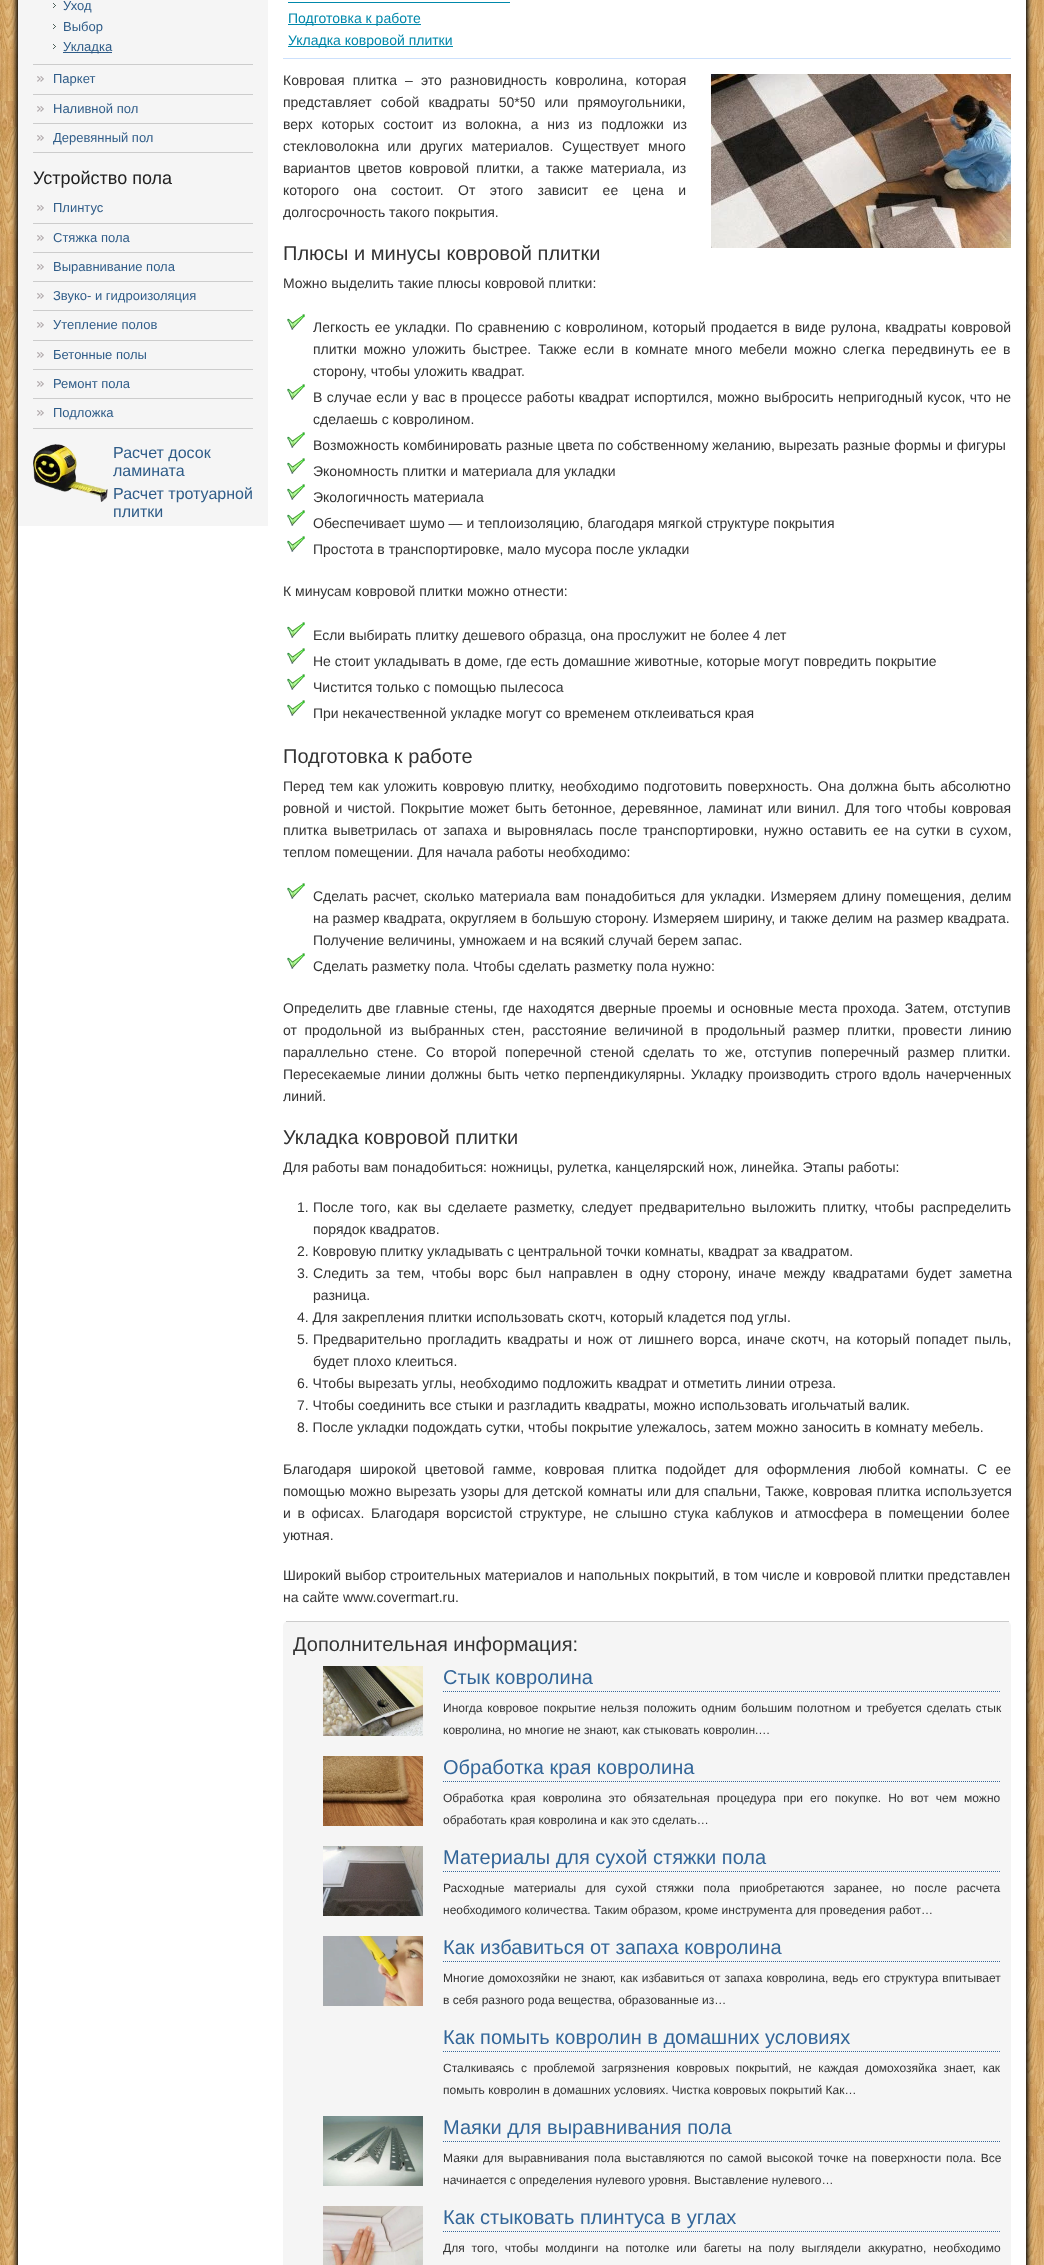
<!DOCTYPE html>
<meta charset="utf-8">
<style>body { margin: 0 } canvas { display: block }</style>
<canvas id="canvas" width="1044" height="2265"></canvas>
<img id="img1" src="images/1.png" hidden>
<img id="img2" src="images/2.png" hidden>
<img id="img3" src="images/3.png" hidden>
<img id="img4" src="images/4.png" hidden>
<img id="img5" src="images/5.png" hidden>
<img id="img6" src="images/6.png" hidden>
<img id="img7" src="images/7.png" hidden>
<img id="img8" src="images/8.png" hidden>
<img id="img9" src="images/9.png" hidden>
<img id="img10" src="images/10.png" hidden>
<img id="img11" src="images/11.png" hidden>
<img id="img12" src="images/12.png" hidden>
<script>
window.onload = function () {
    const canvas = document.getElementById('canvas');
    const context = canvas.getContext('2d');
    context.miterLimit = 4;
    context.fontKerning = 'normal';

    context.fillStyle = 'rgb(255, 255, 255)';
    context.fillRect(0, 0, 1044, 2265);
    context.drawImage(document.getElementById('img1'), 0, 0, 1044, 2265);
    context.fillStyle = 'rgb(0, 0, 0)';
    context.filter = 'blur(2.5px)';
    context.beginPath();
    context.roundRect(16, -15, 1012, 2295, 7);
    context.fill();
    context.filter = 'none';
    context.fillStyle = 'rgb(255, 255, 255)';
    context.fillRect(18, 0, 1008, 2265);
    context.fillStyle = 'rgb(245, 245, 245)';
    context.fillRect(18, 0, 250, 526);
    context.fillStyle = 'rgb(204, 204, 204)';
    context.fillRect(33, 64, 220, 1);
    context.drawImage(document.getElementById('img2'), 53, 3, 3, 5);
    context.drawImage(document.getElementById('img2'), 53, 24, 3, 5);
    context.drawImage(document.getElementById('img2'), 53, 44, 3, 5);
    context.fillStyle = 'rgb(47, 92, 136)';
    context.fillRect(63, 52, 49, 1);
    context.drawImage(document.getElementById('img3'), 37, 76, 7, 6);
    context.fillStyle = 'rgb(204, 204, 204)';
    context.fillRect(33, 94, 220, 1);
    context.drawImage(document.getElementById('img3'), 37, 106, 7, 6);
    context.fillRect(33, 123, 220, 1);
    context.drawImage(document.getElementById('img3'), 37, 135, 7, 6);
    context.fillRect(33, 152, 220, 1);
    context.drawImage(document.getElementById('img3'), 37, 205, 7, 6);
    context.fillRect(33, 223, 220, 1);
    context.drawImage(document.getElementById('img3'), 37, 235, 7, 6);
    context.fillRect(33, 252, 220, 1);
    context.drawImage(document.getElementById('img3'), 37, 264, 7, 6);
    context.fillRect(33, 281, 220, 1);
    context.drawImage(document.getElementById('img3'), 37, 293, 7, 6);
    context.fillRect(33, 310, 220, 1);
    context.drawImage(document.getElementById('img3'), 37, 322, 7, 6);
    context.fillRect(33, 340, 220, 1);
    context.drawImage(document.getElementById('img3'), 37, 352, 7, 6);
    context.fillRect(33, 369, 220, 1);
    context.drawImage(document.getElementById('img3'), 37, 381, 7, 6);
    context.fillRect(33, 398, 220, 1);
    context.drawImage(document.getElementById('img3'), 37, 410, 7, 6);
    context.fillRect(33, 428, 220, 1);
    context.drawImage(document.getElementById('img4'), 33, 444, 75, 58);
    context.fillStyle = 'rgb(204, 224, 252)';
    context.fillRect(283, 58, 728, 1);
    context.fillStyle = 'rgb(0, 136, 171)';
    context.fillRect(288, 2, 222, 1);
    context.fillRect(288, 24, 133, 1);
    context.fillRect(288, 46, 165, 1);
    context.drawImage(document.getElementById('img5'), 711, 74, 300, 174);
    context.drawImage(document.getElementById('img6'), 287, 314, 18, 16);
    context.drawImage(document.getElementById('img6'), 287, 384, 18, 16);
    context.drawImage(document.getElementById('img6'), 287, 432, 18, 16);
    context.drawImage(document.getElementById('img6'), 287, 458, 18, 16);
    context.drawImage(document.getElementById('img6'), 287, 484, 18, 16);
    context.drawImage(document.getElementById('img6'), 287, 510, 18, 16);
    context.drawImage(document.getElementById('img6'), 287, 536, 18, 16);
    context.drawImage(document.getElementById('img6'), 287, 622, 18, 16);
    context.drawImage(document.getElementById('img6'), 287, 648, 18, 16);
    context.drawImage(document.getElementById('img6'), 287, 674, 18, 16);
    context.drawImage(document.getElementById('img6'), 287, 700, 18, 16);
    context.drawImage(document.getElementById('img6'), 287, 883, 18, 16);
    context.drawImage(document.getElementById('img6'), 287, 953, 18, 16);
    context.fillStyle = 'rgb(245, 245, 245)';
    context.beginPath();
    context.roundRect(283, 1621, 728, 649, 5);
    context.fill();
    context.fillStyle = 'rgb(204, 204, 204)';
    context.fillRect(286, 1621, 723, 1);
    context.drawImage(document.getElementById('img7'), 323, 1666, 100, 70);
    context.beginPath();
    context.moveTo(443, 1691.5);
    context.lineTo(1001, 1691.5);
    context.strokeStyle = 'rgb(51, 102, 153)';
    context.setLineDash([1, 1]);
    context.stroke();
    context.drawImage(document.getElementById('img8'), 323, 1756, 100, 70);
    context.beginPath();
    context.moveTo(443, 1781.5);
    context.lineTo(1001, 1781.5);
    context.stroke();
    context.drawImage(document.getElementById('img9'), 323, 1846, 100, 70);
    context.beginPath();
    context.moveTo(443, 1871.5);
    context.lineTo(1001, 1871.5);
    context.stroke();
    context.drawImage(document.getElementById('img10'), 323, 1936, 100, 70);
    context.beginPath();
    context.moveTo(443, 1961.5);
    context.lineTo(1001, 1961.5);
    context.stroke();
    context.beginPath();
    context.moveTo(443, 2051.5);
    context.lineTo(1001, 2051.5);
    context.stroke();
    context.drawImage(document.getElementById('img11'), 323, 2116, 100, 70);
    context.beginPath();
    context.moveTo(443, 2141.5);
    context.lineTo(1001, 2141.5);
    context.stroke();
    context.drawImage(document.getElementById('img12'), 323, 2206, 100, 59);
    context.beginPath();
    context.moveTo(443, 2231.5);
    context.lineTo(1001, 2231.5);
    context.stroke();
    context.font = '13px Liberation Sans';
    context.fillStyle = 'rgb(47, 92, 136)';
    context.fillText('Уход', 63, 10);
    context.fillText('Выбор', 63, 31);
    context.fillText('Укладка', 63, 51);
    context.fillText('Паркет', 53, 83);
    context.fillText('Наливной пол', 53, 113);
    context.fillText('Деревянный пол', 53, 142);
    context.font = '18px Liberation Sans';
    context.fillStyle = 'rgb(34, 34, 34)';
    context.fillText('Устройство пола', 33, 184);
    context.font = '13px Liberation Sans';
    context.fillStyle = 'rgb(47, 92, 136)';
    context.fillText('Плинтус', 53, 212);
    context.fillText('Стяжка пола', 53, 242);
    context.fillText('Выравнивание пола', 53, 271);
    context.fillText('Звуко- и гидроизоляция', 53, 300);
    context.fillText('Утепление полов', 53, 329);
    context.fillText('Бетонные полы', 53, 359);
    context.fillText('Ремонт пола', 53, 388);
    context.fillText('Подложка', 53, 417);
    context.font = '16px Liberation Sans';
    context.fillText('Расчет досок', 113, 458);
    context.fillText('ламината', 113, 476);
    context.fillText('Расчет тротуарной', 113, 499);
    context.fillText('плитки', 113, 517);
    context.font = '14px Liberation Sans';
    context.fillStyle = 'rgb(0, 136, 171)';
    context.fillText('Подготовка к работе', 288, 23);
    context.fillText('Укладка ковровой плитки', 288, 45);
    context.wordSpacing = '4.25px';
    context.fillStyle = 'rgb(51, 51, 51)';
    context.fillText('Ковровая плитка – это разновидность ковролина, которая', 283, 85);
    context.wordSpacing = '5.25px';
    context.fillText('представляет собой квадраты 50*50 или прямоугольники,', 283, 107);
    context.wordSpacing = '5px';
    context.fillText('верх которых состоит из волокна, а низ из подложки из', 283, 129);
    context.wordSpacing = '4.75px';
    context.fillText('стекловолокна или других материалов. Существует много', 283, 151);
    context.wordSpacing = '3.25px';
    context.fillText('вариантов цветов ковровой плитки, а также материала, из', 283, 173);
    context.wordSpacing = '10.5px';
    context.fillText('которого она состоит. От этого зависит ее цена и', 283, 195);
    context.wordSpacing = '0px';
    context.fillText('долгосрочность такого покрытия.', 283, 217);
    context.font = '20px Liberation Sans';
    context.fillText('Плюсы и минусы ковровой плитки', 283, 260);
    context.font = '14px Liberation Sans';
    context.fillText('Можно выделить такие плюсы ковровой плитки:', 283, 288);
    context.wordSpacing = '0.9px';
    context.fillText('Легкость ее укладки. По сравнению с ковролином, который продается в виде рулона, квадраты ковровой', 313, 332);
    context.wordSpacing = '2.75px';
    context.fillText('плитки можно уложить быстрее. Также если в комнате много мебели можно слегка передвинуть ее в', 313, 354);
    context.wordSpacing = '0px';
    context.fillText('сторону, чтобы уложить квадрат.', 313, 376);
    context.wordSpacing = '0.6px';
    context.fillText('В случае если у вас в процессе работы квадрат испортился, можно выбросить непригодный кусок, что не', 313, 402);
    context.wordSpacing = '0px';
    context.fillText('сделаешь с ковролином.', 313, 424);
    context.fillText('Возможность комбинировать разные цвета по собственному желанию, вырезать разные формы и фигуры', 313, 450);
    context.fillText('Экономность плитки и материала для укладки', 313, 476);
    context.fillText('Экологичность материала', 313, 502);
    context.fillText('Обеспечивает шумо — и теплоизоляцию, благодаря мягкой структуре покрытия', 313, 528);
    context.fillText('Простота в транспортировке, мало мусора после укладки', 313, 554);
    context.fillText('К минусам ковровой плитки можно отнести:', 283, 596);
    context.fillText('Если выбирать плитку дешевого образца, она прослужит не более 4 лет', 313, 640);
    context.fillText('Не стоит укладывать в доме, где есть домашние животные, которые могут повредить покрытие', 313, 666);
    context.fillText('Чистится только с помощью пылесоса', 313, 692);
    context.fillText('При некачественной укладке могут со временем отклеиваться края', 313, 718);
    context.font = '20px Liberation Sans';
    context.fillText('Подготовка к работе', 283, 763);
    context.wordSpacing = '1.25px';
    context.font = '14px Liberation Sans';
    context.fillText('Перед тем как уложить ковровую плитку, необходимо подготовить поверхность. Она должна быть абсолютно', 283, 791);
    context.fillText('ровной и чистой. Покрытие может быть бетонное, деревянное, ламинат или винил. Для того чтобы ковровая', 283, 813);
    context.wordSpacing = '2px';
    context.fillText('плитка выветрилась от запаха и выровнялась после транспортировки, нужно оставить ее на сутки в сухом,', 283, 835);
    context.wordSpacing = '0px';
    context.fillText('теплом помещении. Для начала работы необходимо:', 283, 857);
    context.wordSpacing = '1.25px';
    context.fillText('Сделать расчет, сколько материала вам понадобиться для укладки. Измеряем длину помещения, делим', 313, 901);
    context.wordSpacing = '0px';
    context.fillText('на размер квадрата, округляем в большую сторону. Измеряем ширину, и также делим на размер квадрата.', 313, 923);
    context.fillText('Получение величины, умножаем и на всякий случай берем запас.', 313, 945);
    context.fillText('Сделать разметку пола. Чтобы сделать разметку пола нужно:', 313, 971);
    context.wordSpacing = '1.3px';
    context.fillText('Определить две главные стены, где находятся дверные проемы и основные места прохода. Затем, отступив', 283, 1013);
    context.wordSpacing = '3.6px';
    context.fillText('от продольной из выбранных стен, расстояние величиной в продольный размер плитки, провести линию', 283, 1035);
    context.wordSpacing = '4.5px';
    context.fillText('параллельно стене. Со второй поперечной стеной сделать то же, отступив поперечный размер плитки.', 283, 1057);
    context.wordSpacing = '1.5px';
    context.fillText('Пересекаемые линии должны быть четко перпендикулярны. Укладку производить строго вдоль начерченных', 283, 1079);
    context.wordSpacing = '0px';
    context.fillText('линий.', 283, 1101);
    context.font = '20px Liberation Sans';
    context.fillText('Укладка ковровой плитки', 283, 1144);
    context.font = '14px Liberation Sans';
    context.fillText('Для работы вам понадобиться: ножницы, рулетка, канцелярский нож, линейка. Этапы работы:', 283, 1172);
    context.fillText('1.', 297, 1212);
    context.wordSpacing = '2.5px';
    context.fillText('После того, как вы сделаете разметку, следует предварительно выложить плитку, чтобы распределить', 313, 1212);
    context.wordSpacing = '0px';
    context.fillText('порядок квадратов.', 313, 1234);
    context.fillText('2. Ковровую плитку укладывать с центральной точки комнаты, квадрат за квадратом.', 297, 1256);
    context.fillText('3.', 297, 1278);
    context.wordSpacing = '3.25px';
    context.fillText('Следить за тем, чтобы ворс был направлен в одну сторону, иначе между квадратами будет заметна', 313, 1278);
    context.wordSpacing = '0px';
    context.fillText('разница.', 313, 1300);
    context.fillText('4. Для закрепления плитки использовать скотч, который кладется под углы.', 297, 1322);
    context.fillText('5.', 297, 1344);
    context.wordSpacing = '2px';
    context.fillText('Предварительно прогладить квадраты и нож от лишнего ворса, иначе скотч, на который попадет пыль,', 313, 1344);
    context.wordSpacing = '0px';
    context.fillText('будет плохо клеиться.', 313, 1366);
    context.fillText('6. Чтобы вырезать углы, необходимо подложить квадрат и отметить линии отреза.', 297, 1388);
    context.fillText('7. Чтобы соединить все стыки и разгладить квадраты, можно использовать игольчатый валик.', 297, 1410);
    context.fillText('8. После укладки подождать сутки, чтобы покрытие улежалось, затем можно заносить в комнату мебель.', 297, 1432);
    context.wordSpacing = '4.5px';
    context.fillText('Благодаря широкой цветовой гамме, ковровая плитка подойдет для оформления любой комнаты. С ее', 283, 1474);
    context.wordSpacing = '0.5px';
    context.fillText('помощью можно вырезать узоры для детской комнаты или для спальни, Также, ковровая плитка используется', 283, 1496);
    context.wordSpacing = '2.75px';
    context.fillText('и в офисах. Благодаря ворсистой структуре, не слышно стука каблуков и атмосфера в помещении более', 283, 1518);
    context.wordSpacing = '0px';
    context.fillText('уютная.', 283, 1540);
    context.wordSpacing = '0.1px';
    context.fillText('Широкий выбор строительных материалов и напольных покрытий, в том числе и ковровой плитки представлен', 283, 1580);
    context.wordSpacing = '0px';
    context.fillText('на сайте www.covermart.ru.', 283, 1602);
    context.font = '20px Liberation Sans';
    context.fillText('Дополнительная информация:', 293, 1651);
    context.fillStyle = 'rgb(51, 102, 153)';
    context.fillText('Стык ковролина', 443, 1684);
    context.wordSpacing = '1.4px';
    context.font = '12px Liberation Sans';
    context.fillStyle = 'rgb(51, 51, 51)';
    context.fillText('Иногда ковровое покрытие нельзя положить одним большим полотном и требуется сделать стык', 443, 1712);
    context.wordSpacing = '0px';
    context.fillText('ковролина, но многие не знают, как стыковать ковролин.…', 443, 1734);
    context.font = '20px Liberation Sans';
    context.fillStyle = 'rgb(51, 102, 153)';
    context.fillText('Обработка края ковролина', 443, 1774);
    context.wordSpacing = '3.75px';
    context.font = '12px Liberation Sans';
    context.fillStyle = 'rgb(51, 51, 51)';
    context.fillText('Обработка края ковролина это обязательная процедура при его покупке. Но вот чем можно', 443, 1802);
    context.wordSpacing = '0px';
    context.fillText('обработать края ковролина и как это сделать…', 443, 1824);
    context.font = '20px Liberation Sans';
    context.fillStyle = 'rgb(51, 102, 153)';
    context.fillText('Материалы для сухой стяжки пола', 443, 1864);
    context.wordSpacing = '6px';
    context.font = '12px Liberation Sans';
    context.fillStyle = 'rgb(51, 51, 51)';
    context.fillText('Расходные материалы для сухой стяжки пола приобретаются заранее, но после расчета', 443, 1892);
    context.wordSpacing = '0px';
    context.fillText('необходимого количества. Таким образом, кроме инструмента для проведения работ…', 443, 1914);
    context.font = '20px Liberation Sans';
    context.fillStyle = 'rgb(51, 102, 153)';
    context.fillText('Как избавиться от запаха ковролина', 443, 1954);
    context.wordSpacing = '0.75px';
    context.font = '12px Liberation Sans';
    context.fillStyle = 'rgb(51, 51, 51)';
    context.fillText('Многие домохозяйки не знают, как избавиться от запаха ковролина, ведь его структура впитывает', 443, 1982);
    context.wordSpacing = '0px';
    context.fillText('в себя разного рода вещества, образованные из…', 443, 2004);
    context.font = '20px Liberation Sans';
    context.fillStyle = 'rgb(51, 102, 153)';
    context.fillText('Как помыть ковролин в домашних условиях', 443, 2044);
    context.wordSpacing = '3.25px';
    context.font = '12px Liberation Sans';
    context.fillStyle = 'rgb(51, 51, 51)';
    context.fillText('Сталкиваясь с проблемой загрязнения ковровых покрытий, не каждая домохозяйка знает, как', 443, 2072);
    context.wordSpacing = '0px';
    context.fillText('помыть ковролин в домашних условиях. Чистка ковровых покрытий Как…', 443, 2094);
    context.font = '20px Liberation Sans';
    context.fillStyle = 'rgb(51, 102, 153)';
    context.fillText('Маяки для выравнивания пола', 443, 2134);
    context.wordSpacing = '1.5px';
    context.font = '12px Liberation Sans';
    context.fillStyle = 'rgb(51, 51, 51)';
    context.fillText('Маяки для выравнивания пола выставляются по самой высокой точке на поверхности пола. Все', 443, 2162);
    context.wordSpacing = '0px';
    context.fillText('начинается с определения нулевого уровня. Выставление нулевого…', 443, 2184);
    context.font = '20px Liberation Sans';
    context.fillStyle = 'rgb(51, 102, 153)';
    context.fillText('Как стыковать плинтуса в углах', 443, 2224);
    context.wordSpacing = '3.6px';
    context.font = '12px Liberation Sans';
    context.fillStyle = 'rgb(51, 51, 51)';
    context.fillText('Для того, чтобы молдинги на потолке или багеты на полу выглядели аккуратно, необходимо', 443, 2252);
};
</script>
